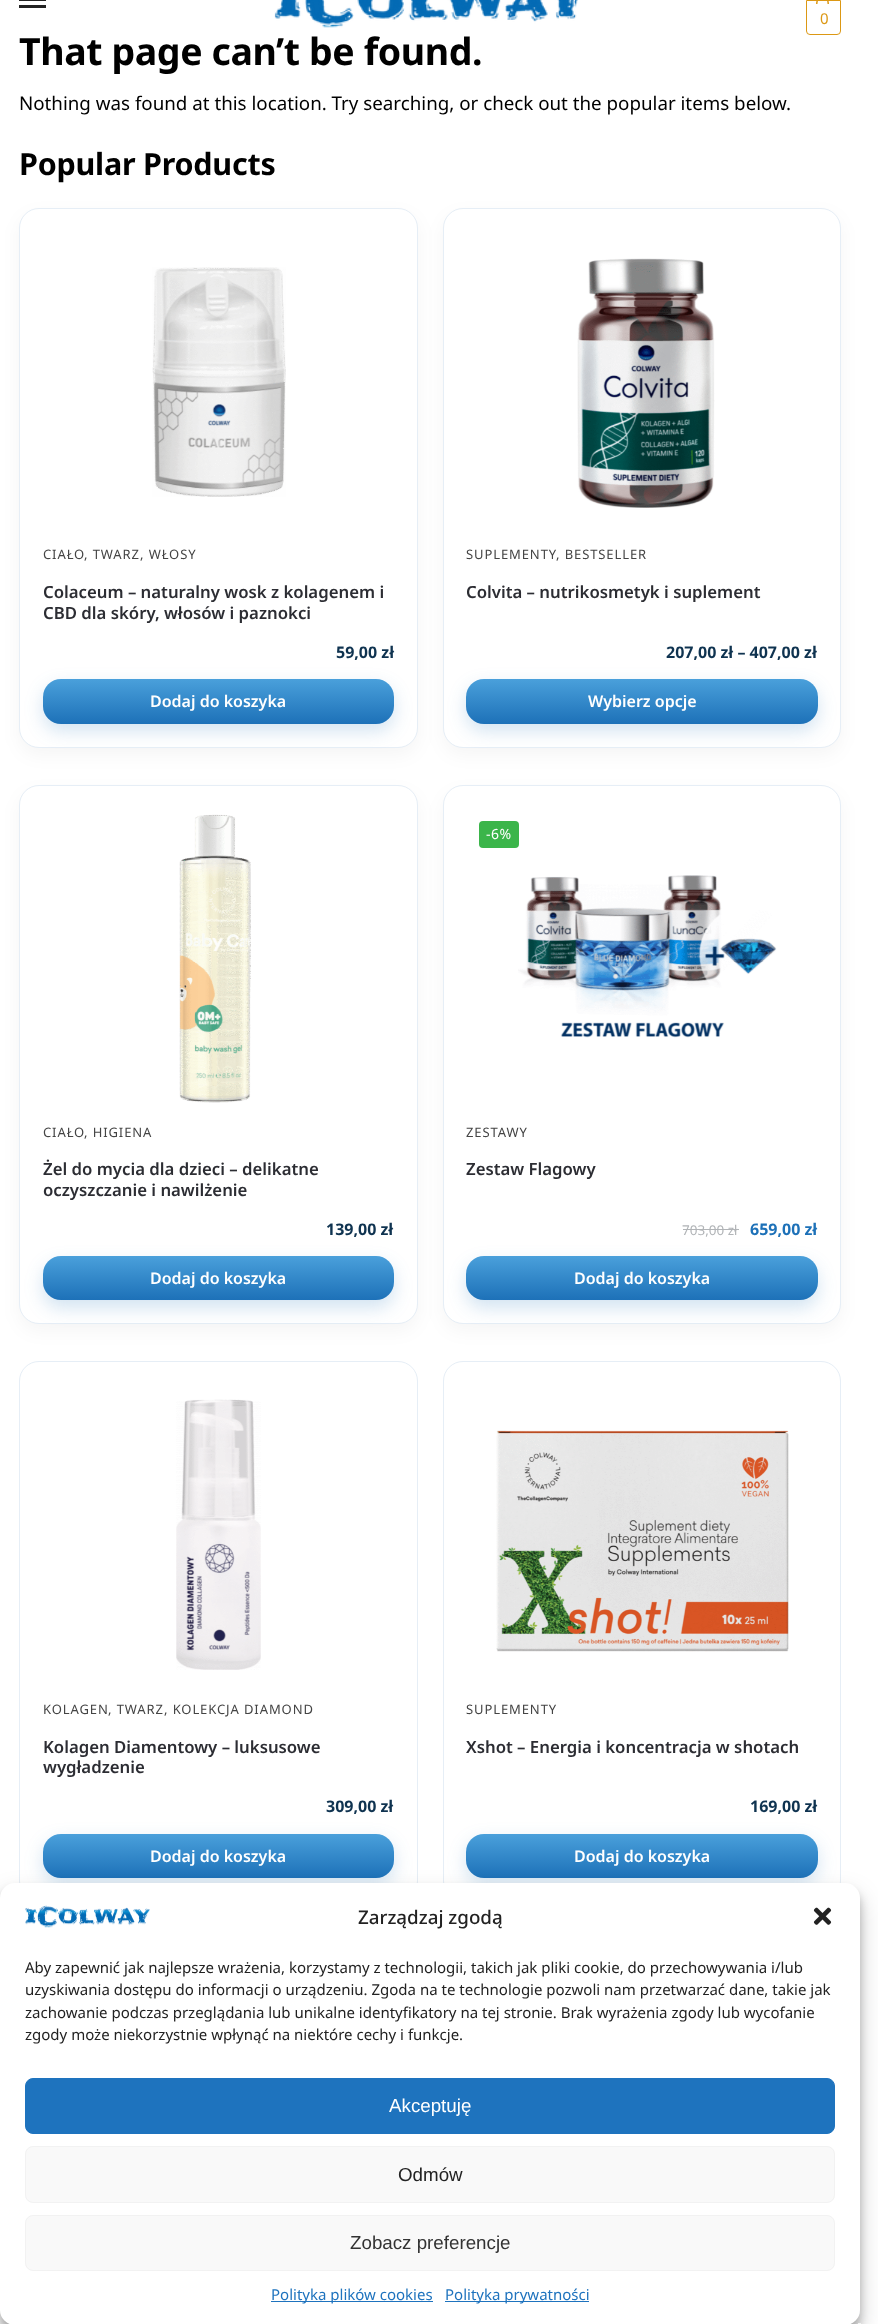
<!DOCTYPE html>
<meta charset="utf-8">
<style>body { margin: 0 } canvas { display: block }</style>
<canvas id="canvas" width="878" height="2324"></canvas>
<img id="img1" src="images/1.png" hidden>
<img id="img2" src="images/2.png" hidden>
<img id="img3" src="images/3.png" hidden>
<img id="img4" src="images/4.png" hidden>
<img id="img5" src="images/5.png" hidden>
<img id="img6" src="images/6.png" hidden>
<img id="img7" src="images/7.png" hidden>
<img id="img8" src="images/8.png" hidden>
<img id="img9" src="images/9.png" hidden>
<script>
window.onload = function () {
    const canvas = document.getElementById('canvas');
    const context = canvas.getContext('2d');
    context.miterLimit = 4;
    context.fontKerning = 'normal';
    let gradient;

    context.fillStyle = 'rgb(255, 255, 255)';
    context.fillRect(0, 0, 878, 2324);
    context.fillStyle = 'rgb(34, 34, 34)';
    context.fillRect(19, 0, 27, 1);
    context.fillRect(19, 5, 27, 3);
    context.drawImage(document.getElementById('img1'), 274, 0, 304, 28);
    context.beginPath();
    context.roundRect(806.5, 0.5, 34, 34, [0, 0, 3.5, 3.5]);
    context.strokeStyle = 'rgb(220, 152, 20)';
    context.stroke();
    context.fillStyle = 'rgb(220, 152, 20)';
    context.beginPath();
    context.moveTo(822.5, -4);
    context.bezierCurveTo(827, -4, 829, 0, 829, 4);
    context.lineTo(816, 4);
    context.bezierCurveTo(816, 0, 818, -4, 822.5, -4);
    context.closePath();
    context.moveTo(822.5, -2.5);
    context.bezierCurveTo(826, -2.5, 827.5, 0.5, 827.5, 4);
    context.lineTo(817.5, 4);
    context.bezierCurveTo(817.5, 0.5, 819, -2.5, 822.5, -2.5);
    context.closePath();
    context.fill('evenodd');
    context.fillStyle = 'rgba(0, 0, 0, 0.04)';
    context.filter = 'blur(9px)';
    context.beginPath();
    context.roundRect(19, 215, 399, 540, 20);
    context.fill();
    context.filter = 'none';
    context.fillStyle = 'rgb(255, 255, 255)';
    context.beginPath();
    context.roundRect(19.5, 208.5, 398, 539, 19.5);
    context.fill();
    context.strokeStyle = 'rgb(230, 238, 246)';
    context.stroke();
    context.drawImage(document.getElementById('img2'), 152, 267, 134, 230);
    context.fillStyle = 'rgba(29, 113, 184, 0.2)';
    context.filter = 'blur(9px)';
    context.beginPath();
    context.roundRect(43, 686, 351, 45, 18);
    context.fill();
    context.filter = 'none';
    gradient = context.createLinearGradient(218, 679, 218, 724);
    gradient.addColorStop(0, 'rgb(74, 160, 219)');
    gradient.addColorStop(1, 'rgb(29, 113, 184)');
    context.fillStyle = gradient;
    context.beginPath();
    context.roundRect(43, 679, 351, 45, 18);
    context.fill();
    context.fillStyle = 'rgba(0, 0, 0, 0.04)';
    context.filter = 'blur(9px)';
    context.beginPath();
    context.roundRect(443, 215, 398, 540, 20);
    context.fill();
    context.filter = 'none';
    context.fillStyle = 'rgb(255, 255, 255)';
    context.beginPath();
    context.roundRect(443.5, 208.5, 397, 539, 19.5);
    context.fill();
    context.stroke();
    context.drawImage(document.getElementById('img3'), 577, 258, 138, 250);
    context.fillStyle = 'rgba(29, 113, 184, 0.2)';
    context.filter = 'blur(9px)';
    context.beginPath();
    context.roundRect(466, 686, 352, 45, 18);
    context.fill();
    context.filter = 'none';
    gradient = context.createLinearGradient(642, 679, 642, 724);
    gradient.addColorStop(0, 'rgb(74, 160, 219)');
    gradient.addColorStop(1, 'rgb(29, 113, 184)');
    context.fillStyle = gradient;
    context.beginPath();
    context.roundRect(466, 679, 352, 45, 18);
    context.fill();
    context.fillStyle = 'rgba(0, 0, 0, 0.04)';
    context.filter = 'blur(9px)';
    context.beginPath();
    context.roundRect(19, 793, 399, 538, 20);
    context.fill();
    context.filter = 'none';
    context.fillStyle = 'rgb(255, 255, 255)';
    context.beginPath();
    context.roundRect(19.5, 785.5, 398, 538, 19.5);
    context.fill();
    context.stroke();
    context.drawImage(document.getElementById('img4'), 179, 814, 72, 289);
    context.fillStyle = 'rgba(29, 113, 184, 0.2)';
    context.filter = 'blur(9px)';
    context.beginPath();
    context.roundRect(43, 1264, 351, 44, 18);
    context.fill();
    context.filter = 'none';
    gradient = context.createLinearGradient(218, 1256, 218, 1300);
    gradient.addColorStop(0, 'rgb(74, 160, 219)');
    gradient.addColorStop(1, 'rgb(29, 113, 184)');
    context.fillStyle = gradient;
    context.beginPath();
    context.roundRect(43, 1256, 351, 44, 18);
    context.fill();
    context.fillStyle = 'rgba(0, 0, 0, 0.04)';
    context.filter = 'blur(9px)';
    context.beginPath();
    context.roundRect(443, 793, 398, 538, 20);
    context.fill();
    context.filter = 'none';
    context.fillStyle = 'rgb(255, 255, 255)';
    context.beginPath();
    context.roundRect(443.5, 785.5, 397, 538, 19.5);
    context.fill();
    context.stroke();
    context.fillStyle = 'rgb(59, 181, 74)';
    context.beginPath();
    context.roundRect(479, 821, 40, 27, 4);
    context.fill();
    context.drawImage(document.getElementById('img5'), 518, 875, 259, 163);
    context.fillStyle = 'rgb(177, 180, 183)';
    context.fillRect(683, 1229, 56, 1);
    context.fillStyle = 'rgba(29, 113, 184, 0.2)';
    context.filter = 'blur(9px)';
    context.beginPath();
    context.roundRect(466, 1264, 352, 44, 18);
    context.fill();
    context.filter = 'none';
    gradient = context.createLinearGradient(642, 1256, 642, 1300);
    gradient.addColorStop(0, 'rgb(74, 160, 219)');
    gradient.addColorStop(1, 'rgb(29, 113, 184)');
    context.fillStyle = gradient;
    context.beginPath();
    context.roundRect(466, 1256, 352, 44, 18);
    context.fill();
    context.beginPath();
    context.roundRect(19.5, 1361.5, 398, 539, 19.5);
    context.stroke();
    context.drawImage(document.getElementById('img6'), 176, 1399, 85, 271);
    context.fillStyle = 'rgba(29, 113, 184, 0.2)';
    context.filter = 'blur(9px)';
    context.beginPath();
    context.roundRect(43, 1841, 351, 44, 18);
    context.fill();
    context.filter = 'none';
    gradient = context.createLinearGradient(218, 1834, 218, 1878);
    gradient.addColorStop(0, 'rgb(74, 160, 219)');
    gradient.addColorStop(1, 'rgb(29, 113, 184)');
    context.fillStyle = gradient;
    context.beginPath();
    context.roundRect(43, 1834, 351, 44, 18);
    context.fill();
    context.beginPath();
    context.roundRect(443.5, 1361.5, 397, 539, 19.5);
    context.stroke();
    context.drawImage(document.getElementById('img7'), 496, 1430, 293, 222);
    context.fillStyle = 'rgba(29, 113, 184, 0.2)';
    context.filter = 'blur(9px)';
    context.beginPath();
    context.roundRect(466, 1841, 352, 44, 18);
    context.fill();
    context.filter = 'none';
    gradient = context.createLinearGradient(642, 1834, 642, 1878);
    gradient.addColorStop(0, 'rgb(74, 160, 219)');
    gradient.addColorStop(1, 'rgb(29, 113, 184)');
    context.fillStyle = gradient;
    context.beginPath();
    context.roundRect(466, 1834, 352, 44, 18);
    context.fill();
    context.fillStyle = 'rgba(0, 0, 0, 0.23)';
    context.filter = 'blur(4px)';
    context.beginPath();
    context.roundRect(0, 1890, 860, 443, 15);
    context.fill();
    context.filter = 'none';
    context.fillStyle = 'rgba(0, 0, 0, 0.19)';
    context.filter = 'blur(12.5px)';
    context.beginPath();
    context.roundRect(0, 1895, 860, 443, 15);
    context.fill();
    context.filter = 'none';
    context.fillStyle = 'rgb(255, 255, 255)';
    context.beginPath();
    context.roundRect(0, 1883, 860, 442, 15);
    context.fill();
    context.fillStyle = 'rgb(245, 245, 245)';
    context.fillRect(858, 2323, 3, 1);
    context.drawImage(document.getElementById('img8'), 25, 1905, 125, 23);
    context.drawImage(document.getElementById('img9'), 813, 1907, 19, 18);
    context.fillStyle = 'rgb(30, 115, 190)';
    context.beginPath();
    context.roundRect(25.5, 2078.5, 809, 55, 7.5);
    context.fill();
    context.strokeStyle = 'rgb(30, 115, 190)';
    context.stroke();
    context.fillStyle = 'rgb(249, 249, 249)';
    context.beginPath();
    context.roundRect(25.5, 2146.5, 809, 56, 7.5);
    context.fill();
    context.strokeStyle = 'rgb(242, 242, 242)';
    context.stroke();
    context.beginPath();
    context.roundRect(25.5, 2215.5, 809, 55, 7.5);
    context.fill();
    context.stroke();
    context.fillStyle = 'rgb(30, 115, 190)';
    context.fillRect(271, 2301, 162, 1);
    context.fillRect(445, 2301, 144, 1);
    context.letterSpacing = '-1px';
    context.font = '15px Noto Sans';
    context.fillStyle = 'rgb(220, 152, 20)';
    context.fillText('0', 820, 24);
    context.letterSpacing = '-0.4px';
    context.font = 'bold 37.5px Noto Sans';
    context.fillStyle = 'rgb(0, 0, 0)';
    context.fillText('That page can’t be found.', 19, 65);
    context.letterSpacing = '0px';
    context.font = '18.75px Noto Sans';
    context.fillText('Nothing was found at this location. Try searching, or check out the popular items below.', 19, 110);
    context.letterSpacing = '-0.25px';
    context.font = 'bold 30.5px Noto Sans';
    context.fillText('Popular Products', 19, 175);
    context.letterSpacing = '0.9px';
    context.font = '13px Noto Sans';
    context.fillStyle = 'rgb(68, 68, 68)';
    context.fillText('CIAŁO', 43, 559);
    context.fillText(', TWARZ', 84, 559);
    context.fillText(', WŁOSY', 140, 559);
    context.letterSpacing = '0px';
    context.font = '600 16.75px Noto Sans';
    context.fillStyle = 'rgb(44, 45, 51)';
    context.fillText('Colaceum – naturalny wosk z kolagenem i', 43, 598);
    context.fillText('CBD dla skóry, włosów i paznokci', 43, 619);
    context.font = 'bold 16px Noto Sans';
    context.fillStyle = 'rgb(15, 51, 80)';
    context.fillText('59,00 zł', 336, 658);
    context.font = '600 16px Noto Sans';
    context.fillStyle = 'rgb(255, 255, 255)';
    context.fillText('Dodaj do koszyka', 150, 707);
    context.letterSpacing = '0.9px';
    context.font = '13px Noto Sans';
    context.fillStyle = 'rgb(68, 68, 68)';
    context.fillText(', BESTSELLER', 556, 559);
    context.fillText('SUPLEMENTY', 466, 559);
    context.letterSpacing = '0px';
    context.font = '600 16.75px Noto Sans';
    context.fillStyle = 'rgb(44, 45, 51)';
    context.fillText('Colvita – nutrikosmetyk i suplement', 466, 598);
    context.font = 'bold 16px Noto Sans';
    context.fillStyle = 'rgb(15, 51, 80)';
    context.fillText('207,00 zł – 407,00 zł', 666, 658);
    context.font = '600 16px Noto Sans';
    context.fillStyle = 'rgb(255, 255, 255)';
    context.fillText('Wybierz opcje', 588, 707);
    context.letterSpacing = '0.9px';
    context.font = '13px Noto Sans';
    context.fillStyle = 'rgb(68, 68, 68)';
    context.fillText('CIAŁO', 43, 1137);
    context.fillText(', HIGIENA', 84, 1137);
    context.letterSpacing = '0px';
    context.font = '600 16.75px Noto Sans';
    context.fillStyle = 'rgb(44, 45, 51)';
    context.fillText('Żel do mycia dla dzieci – delikatne', 43, 1175);
    context.fillText('oczyszczanie i nawilżenie', 43, 1196);
    context.font = 'bold 16px Noto Sans';
    context.fillStyle = 'rgb(15, 51, 80)';
    context.fillText('139,00 zł', 326, 1235);
    context.font = '600 16px Noto Sans';
    context.fillStyle = 'rgb(255, 255, 255)';
    context.fillText('Dodaj do koszyka', 150, 1284);
    context.letterSpacing = '0.5px';
    context.font = '14px Noto Sans';
    context.fillText('-6%', 486, 839);
    context.letterSpacing = '0.9px';
    context.font = '13px Noto Sans';
    context.fillStyle = 'rgb(68, 68, 68)';
    context.fillText('ZESTAWY', 466, 1137);
    context.letterSpacing = '0px';
    context.font = '600 16.75px Noto Sans';
    context.fillStyle = 'rgb(44, 45, 51)';
    context.fillText('Zestaw Flagowy', 466, 1175);
    context.font = '13.5px Noto Sans';
    context.fillStyle = 'rgb(177, 180, 183)';
    context.fillText('703,00 zł', 682, 1235);
    context.font = 'bold 16px Noto Sans';
    context.fillStyle = 'rgb(29, 113, 184)';
    context.fillText('659,00 zł', 750, 1235);
    context.font = '600 16px Noto Sans';
    context.fillStyle = 'rgb(255, 255, 255)';
    context.fillText('Dodaj do koszyka', 574, 1284);
    context.letterSpacing = '0.9px';
    context.font = '13px Noto Sans';
    context.fillStyle = 'rgb(68, 68, 68)';
    context.fillText('KOLAGEN', 43, 1714);
    context.fillText(', TWARZ', 108, 1714);
    context.fillText(', KOLEKCJA DIAMOND', 164, 1714);
    context.letterSpacing = '0px';
    context.font = '600 16.75px Noto Sans';
    context.fillStyle = 'rgb(44, 45, 51)';
    context.fillText('Kolagen Diamentowy – luksusowe', 43, 1753);
    context.fillText('wygładzenie', 43, 1773);
    context.font = 'bold 16px Noto Sans';
    context.fillStyle = 'rgb(15, 51, 80)';
    context.fillText('309,00 zł', 326, 1812);
    context.font = '600 16px Noto Sans';
    context.fillStyle = 'rgb(255, 255, 255)';
    context.fillText('Dodaj do koszyka', 150, 1862);
    context.letterSpacing = '0.9px';
    context.font = '13px Noto Sans';
    context.fillStyle = 'rgb(68, 68, 68)';
    context.fillText('SUPLEMENTY', 466, 1714);
    context.letterSpacing = '0px';
    context.font = '600 16.75px Noto Sans';
    context.fillStyle = 'rgb(44, 45, 51)';
    context.fillText('Xshot – Energia i koncentracja w shotach', 466, 1753);
    context.font = 'bold 16px Noto Sans';
    context.fillStyle = 'rgb(15, 51, 80)';
    context.fillText('169,00 zł', 750, 1812);
    context.font = '600 16px Noto Sans';
    context.fillStyle = 'rgb(255, 255, 255)';
    context.fillText('Dodaj do koszyka', 574, 1862);
    context.font = '500 18.75px Noto Sans';
    context.fillStyle = 'rgb(34, 34, 34)';
    context.fillText('Zarządzaj zgodą', 358, 1924);
    context.font = '15px Noto Sans';
    context.fillText('Aby zapewnić jak najlepsze wrażenia, korzystamy z technologii, takich jak pliki cookie, do przechowywania i/lub', 25, 1973);
    context.fillText('uzyskiwania dostępu do informacji o urządzeniu. Zgoda na te technologie pozwoli nam przetwarzać dane, takie jak', 25, 1995);
    context.fillText('zachowanie podczas przeglądania lub unikalne identyfikatory na tej stronie. Brak wyrażenia zgody lub wycofanie', 25, 2018);
    context.fillText('zgody może niekorzystnie wpłynąć na niektóre cechy i funkcje.', 25, 2040);
    context.font = '18.75px Liberation Sans';
    context.fillStyle = 'rgb(255, 255, 255)';
    context.fillText('Akceptuję', 389, 2112);
    context.fillStyle = 'rgb(34, 34, 34)';
    context.fillText('Odmów', 398, 2181);
    context.fillStyle = 'rgb(51, 51, 51)';
    context.fillText('Zobacz preferencje', 350, 2249);
    context.font = '15px Noto Sans';
    context.fillStyle = 'rgb(30, 115, 190)';
    context.fillText('Polityka plików cookies', 271, 2300);
    context.fillText('Polityka prywatności', 445, 2300);
};
</script>
